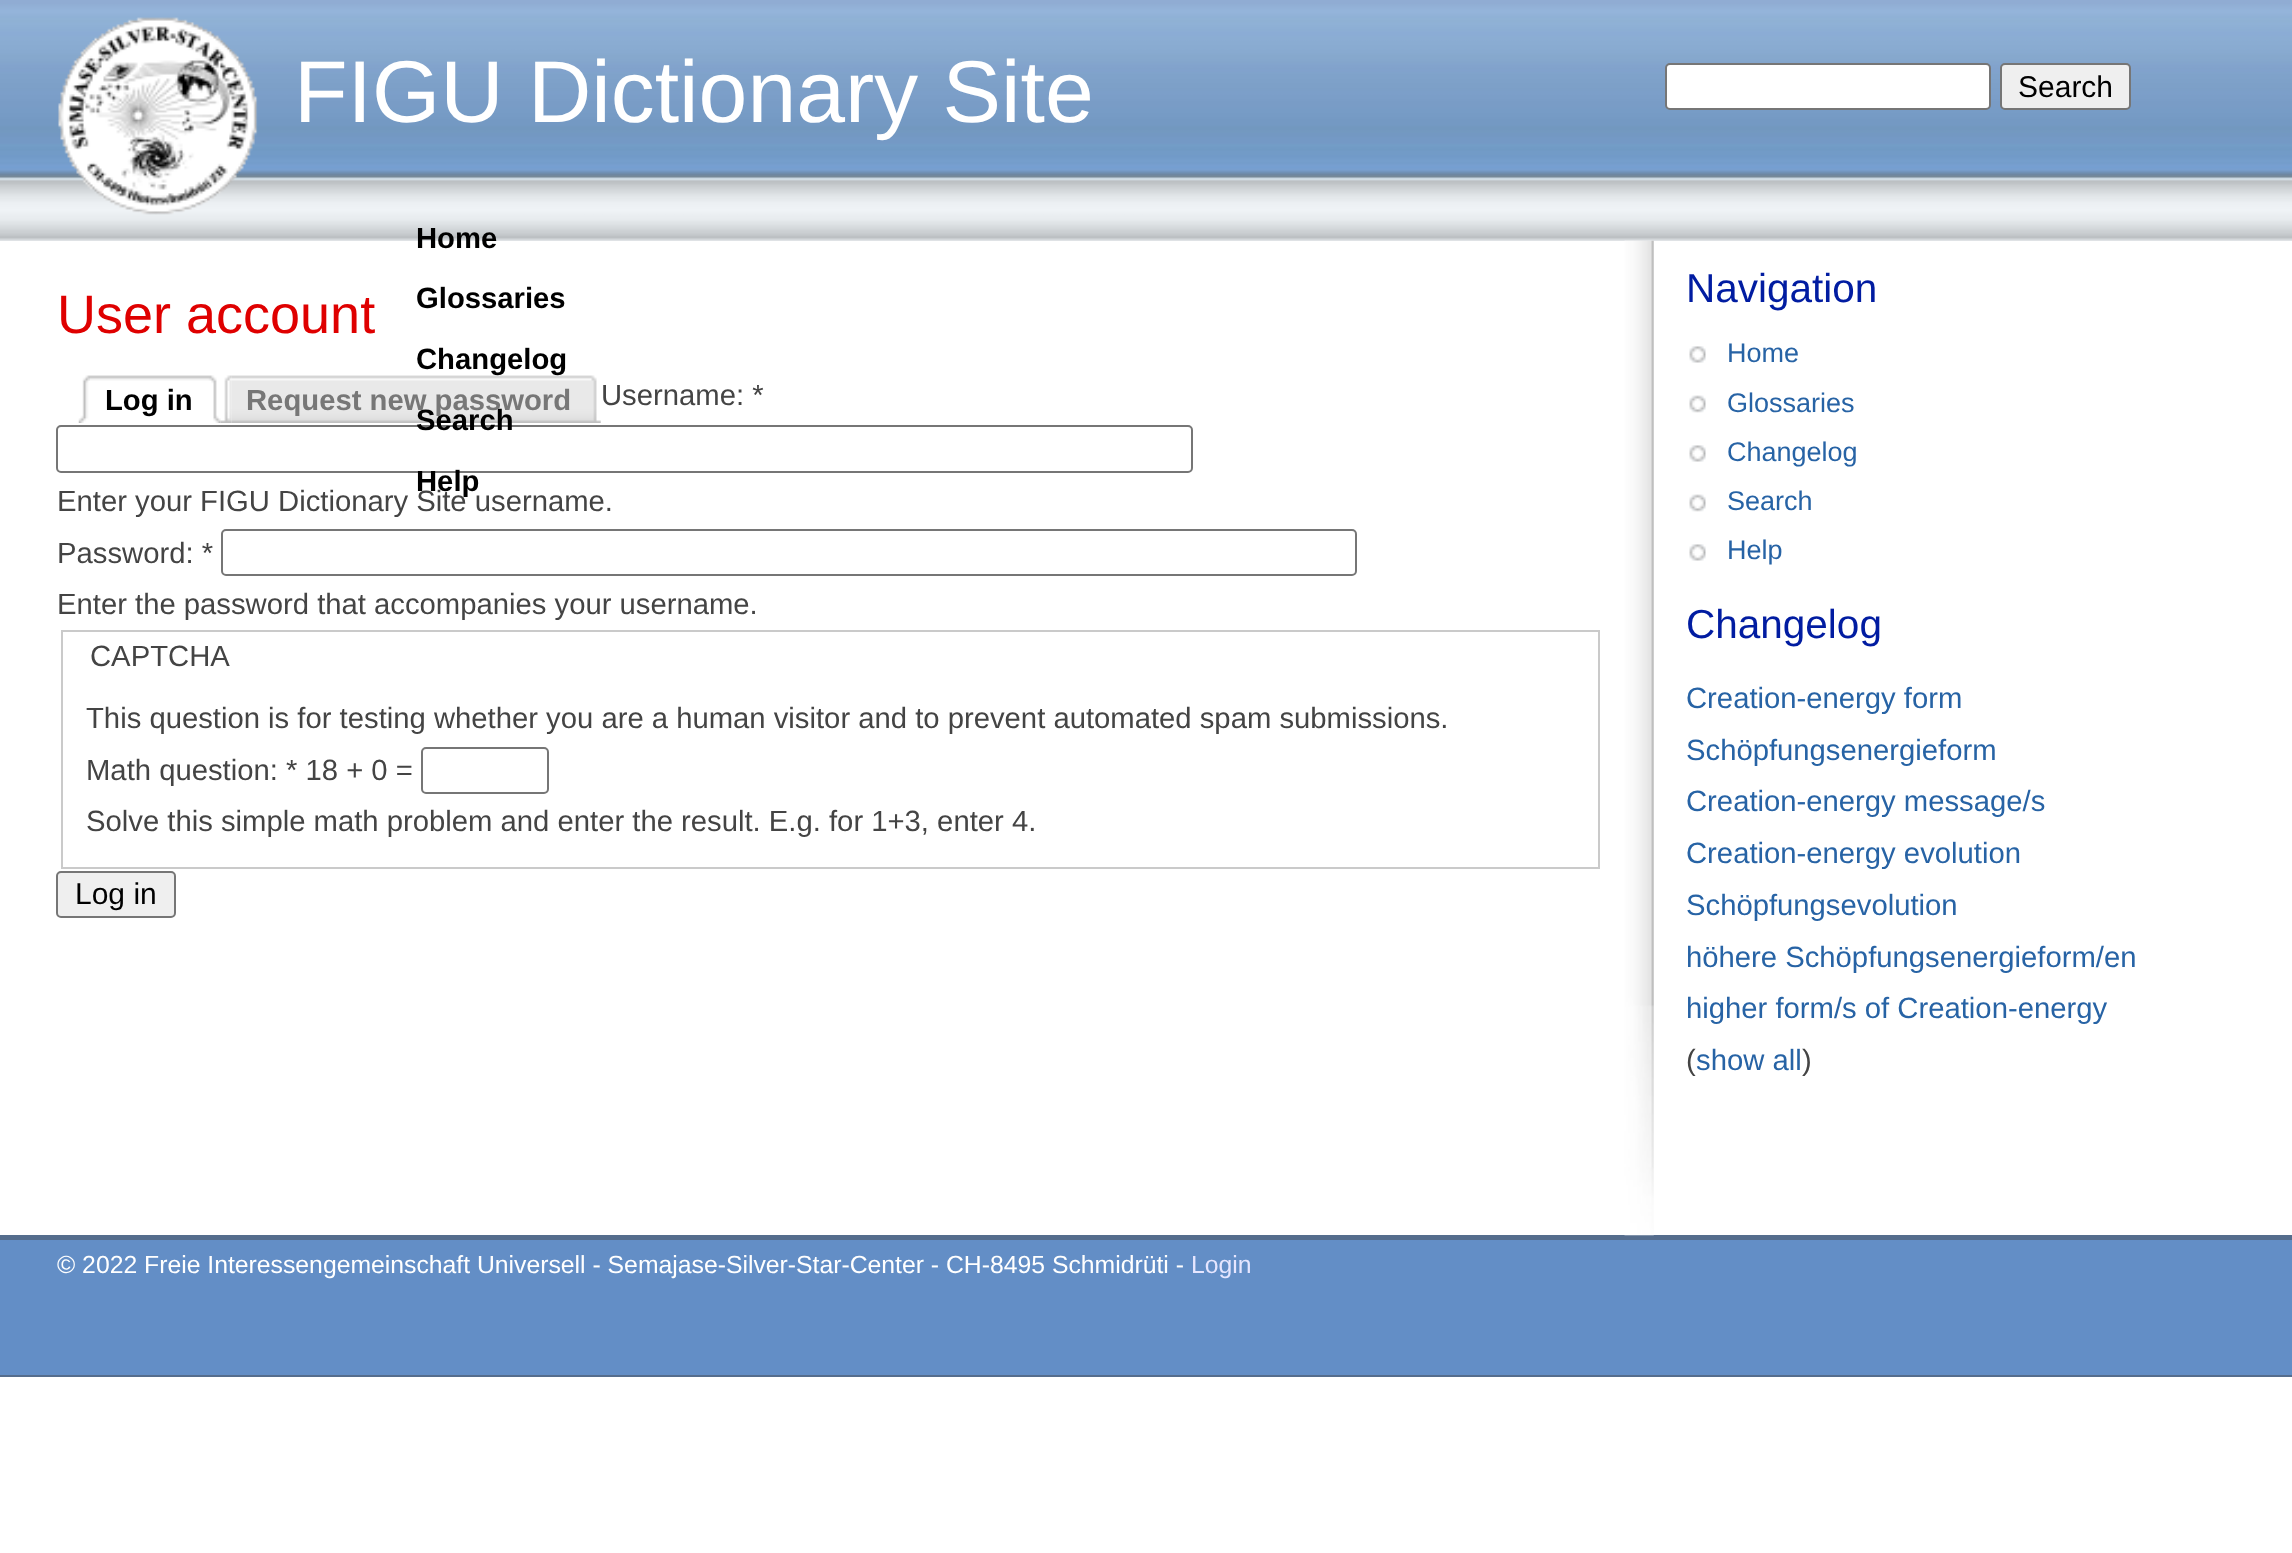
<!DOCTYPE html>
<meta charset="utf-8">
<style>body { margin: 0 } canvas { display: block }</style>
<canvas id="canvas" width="2292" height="1553"></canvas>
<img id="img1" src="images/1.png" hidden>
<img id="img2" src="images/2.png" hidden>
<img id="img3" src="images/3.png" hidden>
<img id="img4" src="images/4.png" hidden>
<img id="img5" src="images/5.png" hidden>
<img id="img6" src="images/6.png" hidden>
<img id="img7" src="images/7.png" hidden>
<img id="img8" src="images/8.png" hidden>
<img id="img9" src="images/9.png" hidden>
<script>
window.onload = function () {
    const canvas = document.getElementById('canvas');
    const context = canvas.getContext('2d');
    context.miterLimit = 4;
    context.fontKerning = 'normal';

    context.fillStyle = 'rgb(255, 255, 255)';
    context.fillRect(0, 0, 2292, 1553);
    context.drawImage(document.getElementById('img1'), 0, 0, 2292, 241);
    context.drawImage(document.getElementById('img2'), 58, 17, 200, 198);
    context.fillStyle = 'rgb(85, 109, 141)';
    context.fillRect(0, 1235, 2292, 5);
    context.drawImage(document.getElementById('img3'), 1624, 240, 30, 996);
    context.fillStyle = 'rgb(255, 255, 255)';
    context.beginPath();
    context.roundRect(1666, 64, 324, 45, 4);
    context.fill();
    context.strokeStyle = 'rgb(118, 118, 118)';
    context.lineWidth = 2;
    context.stroke();
    context.fillStyle = 'rgb(239, 239, 239)';
    context.beginPath();
    context.roundRect(2001, 64, 129, 45, 4);
    context.fill();
    context.stroke();
    context.drawImage(document.getElementById('img4'), 1689, 346, 17, 17);
    context.drawImage(document.getElementById('img5'), 1689, 395, 17, 18);
    context.drawImage(document.getElementById('img4'), 1689, 445, 17, 17);
    context.drawImage(document.getElementById('img5'), 1689, 494, 17, 18);
    context.drawImage(document.getElementById('img4'), 1689, 544, 17, 17);
    context.beginPath();
    context.roundRect(57, 426, 1135, 46, 4);
    context.stroke();
    context.beginPath();
    context.roundRect(222, 530, 1134, 45, 4);
    context.stroke();
    context.strokeStyle = 'rgb(202, 202, 202)';
    context.strokeRect(62, 631, 1537, 237);
    context.beginPath();
    context.roundRect(422, 748, 126, 45, 4);
    context.strokeStyle = 'rgb(118, 118, 118)';
    context.stroke();
    context.beginPath();
    context.roundRect(57, 872, 118, 45, 4);
    context.fill();
    context.stroke();
    context.drawImage(document.getElementById('img6'), 78, 375, 12, 48);
    context.drawImage(document.getElementById('img7'), 90, 375, 131, 48);
    context.drawImage(document.getElementById('img8'), 220, 375, 12, 48);
    context.drawImage(document.getElementById('img9'), 231, 375, 370, 48);
    context.fillStyle = 'rgb(99, 142, 198)';
    context.fillRect(0, 1240, 2292, 135);
    context.fillStyle = 'rgb(85, 109, 141)';
    context.fillRect(0, 1375, 2292, 2);
    context.font = '87.75px Liberation Sans';
    context.fillStyle = 'rgb(255, 255, 255)';
    context.fillText('FIGU Dictionary Site', 294, 122);
    context.font = 'bold 29.25px Liberation Sans';
    context.fillStyle = 'rgb(0, 0, 0)';
    context.fillText('Home', 416, 248);
    context.fillText('Glossaries', 416, 308);
    context.fillText('Changelog', 416, 369);
    context.fillText('Search', 416, 430);
    context.fillText('Help', 416, 491);
    context.font = '30px Liberation Sans';
    context.fillText('Search', 2018, 97);
    context.font = '40.5px Liberation Sans';
    context.fillStyle = 'rgb(1, 28, 161)';
    context.fillText('Navigation', 1686, 302);
    context.font = '27px Liberation Sans';
    context.fillStyle = 'rgb(39, 99, 165)';
    context.fillText('Home', 1727, 362);
    context.fillText('Glossaries', 1727, 412);
    context.fillText('Changelog', 1727, 461);
    context.fillText('Search', 1727, 510);
    context.fillText('Help', 1727, 559);
    context.font = '40.5px Liberation Sans';
    context.fillStyle = 'rgb(1, 28, 161)';
    context.fillText('Changelog', 1686, 638);
    context.font = '29.25px Liberation Sans';
    context.fillStyle = 'rgb(39, 99, 165)';
    context.fillText('Creation-energy form', 1686, 708);
    context.fillText('Schöpfungsenergieform', 1686, 760);
    context.fillText('Creation-energy message/s', 1686, 811);
    context.fillText('Creation-energy evolution', 1686, 863);
    context.fillText('Schöpfungsevolution', 1686, 915);
    context.fillText('höhere Schöpfungsenergieform/en', 1686, 967);
    context.fillText('higher form/s of Creation-energy', 1686, 1018);
    context.fillStyle = 'rgb(68, 68, 68)';
    context.fillText('(', 1686, 1070);
    context.fillStyle = 'rgb(39, 99, 165)';
    context.fillText('show all', 1696, 1070);
    context.fillStyle = 'rgb(68, 68, 68)';
    context.fillText(')', 1802, 1070);
    context.font = '54px Liberation Sans';
    context.fillStyle = 'rgb(223, 0, 0)';
    context.fillText('User account', 57, 333);
    context.font = '29.25px Liberation Sans';
    context.fillStyle = 'rgb(68, 68, 68)';
    context.fillText('Username: *', 601, 405);
    context.fillText('Enter your FIGU Dictionary Site username.', 57, 511);
    context.fillText('Password: *', 57, 563);
    context.fillText('Enter the password that accompanies your username.', 57, 614);
    context.fillText('CAPTCHA', 90, 666);
    context.fillText('This question is for testing whether you are a human visitor and to prevent automated spam submissions.', 86, 728);
    context.fillText('Math question: * 18 + 0 =', 86, 780);
    context.fillText('Solve this simple math problem and enter the result. E.g. for 1+3, enter 4.', 86, 831);
    context.font = '30px Liberation Sans';
    context.fillStyle = 'rgb(0, 0, 0)';
    context.fillText('Log in', 75, 904);
    context.font = 'bold 29.25px Liberation Sans';
    context.fillText('Log in', 105, 410);
    context.fillStyle = 'rgb(119, 119, 119)';
    context.fillText('Request new password', 246, 410);
    context.font = '24.75px Liberation Sans';
    context.fillStyle = 'rgb(255, 255, 255)';
    context.fillText('© 2022 Freie Interessengemeinschaft Universell - Semajase-Silver-Star-Center - CH-8495 Schmidrüti -', 57, 1273);
    context.fillStyle = 'rgb(230, 230, 255)';
    context.fillText('Login', 1191, 1273);
};
</script>
